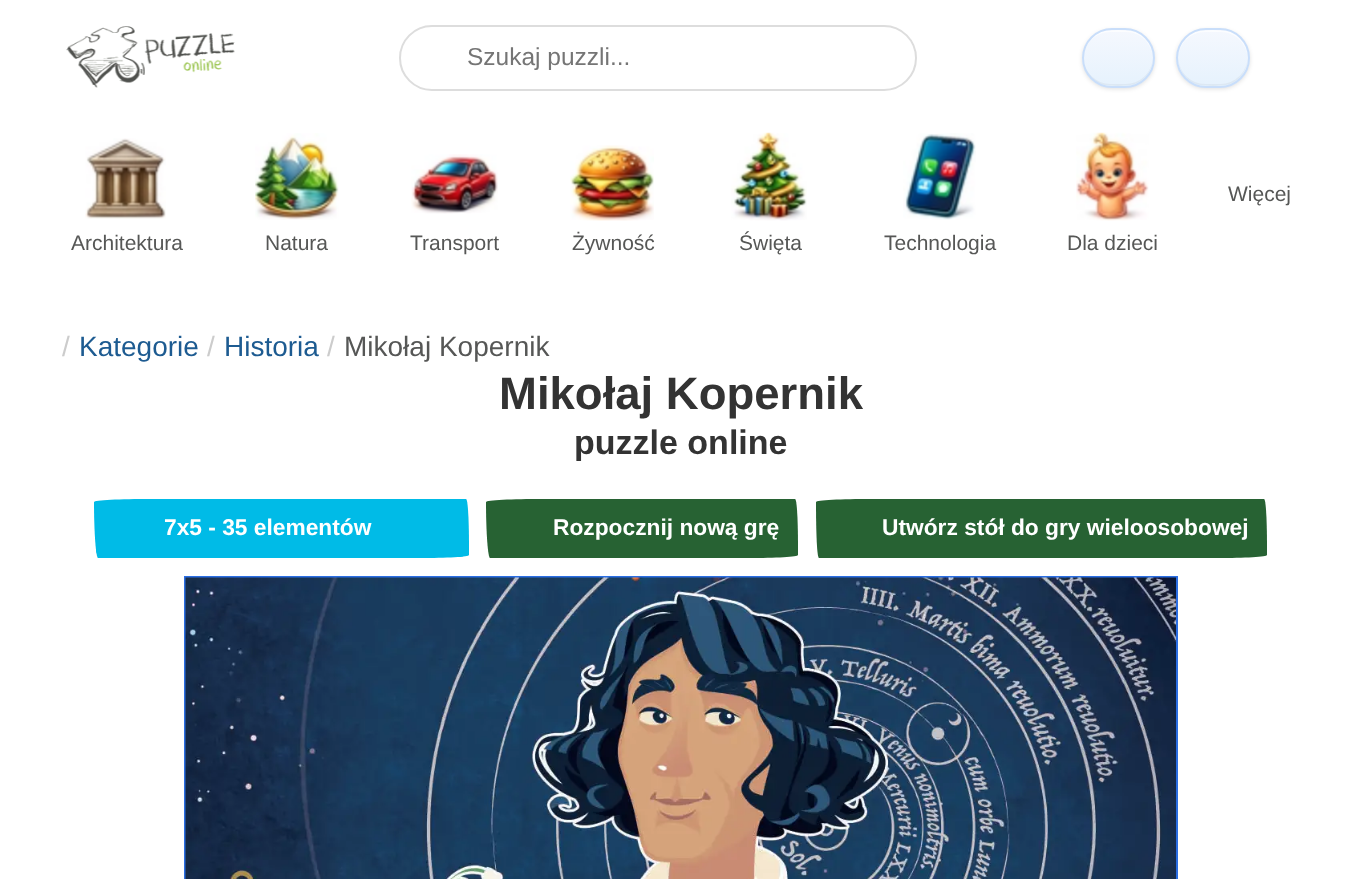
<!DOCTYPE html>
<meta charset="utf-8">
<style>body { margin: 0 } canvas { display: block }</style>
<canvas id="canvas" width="1360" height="879"></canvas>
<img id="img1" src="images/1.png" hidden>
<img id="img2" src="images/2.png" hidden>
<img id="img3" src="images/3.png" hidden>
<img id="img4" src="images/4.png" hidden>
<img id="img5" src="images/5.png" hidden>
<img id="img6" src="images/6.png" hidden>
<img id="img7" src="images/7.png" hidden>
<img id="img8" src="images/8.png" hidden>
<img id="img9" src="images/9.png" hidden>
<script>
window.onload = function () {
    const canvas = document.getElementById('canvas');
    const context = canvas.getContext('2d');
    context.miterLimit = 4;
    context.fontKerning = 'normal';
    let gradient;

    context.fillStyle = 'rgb(255, 255, 255)';
    context.fillRect(0, 0, 1360, 879);
    context.drawImage(document.getElementById('img1'), 66, 26, 169, 62);
    context.beginPath();
    context.roundRect(400, 26, 516, 64, 32);
    context.strokeStyle = 'rgb(221, 221, 221)';
    context.lineWidth = 2;
    context.stroke();
    context.fillStyle = 'rgba(0, 0, 0, 0.12)';
    context.filter = 'blur(2px)';
    context.beginPath();
    context.roundRect(1082, 30, 73, 59, 29.5);
    context.fill();
    context.filter = 'none';
    context.save();
    context.beginPath();
    context.roundRect(1082, 28, 73, 60, 30);
    context.clip();
    gradient = context.createLinearGradient(1118, 30, 1118, 86);
    gradient.addColorStop(0, 'rgb(245, 248, 254)');
    gradient.addColorStop(1, 'rgb(230, 242, 253)');
    context.fillStyle = gradient;
    context.fillRect(1082, 30, 73, 56);
    context.restore();
    context.fillStyle = 'rgba(0, 0, 0, 0.04)';
    context.beginPath();
    context.moveTo(1083, 57);
    context.bezierCurveTo(1083, 70, 1092, 83, 1105, 85);
    context.lineTo(1118, 86);
    context.lineTo(1131, 85);
    context.bezierCurveTo(1144, 83, 1153, 70, 1153, 57);
    context.bezierCurveTo(1152, 72, 1141, 84, 1125, 84);
    context.lineTo(1111, 84);
    context.bezierCurveTo(1096, 84, 1084, 72, 1083, 57);
    context.closePath();
    context.fill();
    context.fillStyle = 'rgba(255, 255, 255, 0.65)';
    context.beginPath();
    context.moveTo(1111, 32);
    context.lineTo(1125, 32);
    context.bezierCurveTo(1141, 32, 1152, 43, 1153, 59);
    context.bezierCurveTo(1153, 46, 1144, 33, 1131, 31);
    context.lineTo(1118, 30);
    context.lineTo(1105, 31);
    context.bezierCurveTo(1092, 33, 1083, 46, 1083, 59);
    context.bezierCurveTo(1084, 43, 1096, 32, 1111, 32);
    context.closePath();
    context.fill();
    context.beginPath();
    context.roundRect(1083, 29, 71, 58, 29);
    context.strokeStyle = 'rgb(201, 222, 250)';
    context.stroke();
    context.fillStyle = 'rgba(0, 0, 0, 0.12)';
    context.filter = 'blur(2px)';
    context.beginPath();
    context.roundRect(1176, 30, 74, 59, 29.5);
    context.fill();
    context.filter = 'none';
    context.save();
    context.beginPath();
    context.roundRect(1176, 28, 74, 60, 30);
    context.clip();
    gradient = context.createLinearGradient(1213, 30, 1213, 86);
    gradient.addColorStop(0, 'rgb(245, 248, 254)');
    gradient.addColorStop(1, 'rgb(230, 242, 253)');
    context.fillStyle = gradient;
    context.fillRect(1176, 30, 74, 56);
    context.restore();
    context.fillStyle = 'rgba(0, 0, 0, 0.04)';
    context.beginPath();
    context.moveTo(1178, 57);
    context.bezierCurveTo(1178, 70, 1187, 83, 1200, 85);
    context.lineTo(1213, 86);
    context.lineTo(1226, 85);
    context.bezierCurveTo(1239, 83, 1248, 70, 1248, 57);
    context.bezierCurveTo(1247, 72, 1235, 84, 1220, 84);
    context.lineTo(1206, 84);
    context.bezierCurveTo(1190, 84, 1179, 72, 1178, 57);
    context.closePath();
    context.fill();
    context.fillStyle = 'rgba(255, 255, 255, 0.65)';
    context.beginPath();
    context.moveTo(1206, 32);
    context.lineTo(1220, 32);
    context.bezierCurveTo(1235, 32, 1247, 43, 1248, 59);
    context.bezierCurveTo(1248, 46, 1239, 33, 1226, 31);
    context.lineTo(1213, 30);
    context.lineTo(1200, 31);
    context.bezierCurveTo(1187, 33, 1178, 46, 1178, 59);
    context.bezierCurveTo(1179, 43, 1190, 32, 1206, 32);
    context.closePath();
    context.fill();
    context.beginPath();
    context.roundRect(1177, 29, 72, 58, 29);
    context.stroke();
    context.drawImage(document.getElementById('img2'), 85, 138, 81, 81);
    context.drawImage(document.getElementById('img3'), 255, 133, 84, 87);
    context.drawImage(document.getElementById('img4'), 411, 154, 87, 60);
    context.drawImage(document.getElementById('img5'), 570, 145, 84, 76);
    context.drawImage(document.getElementById('img6'), 731, 132, 76, 89);
    context.drawImage(document.getElementById('img7'), 903, 133, 73, 87);
    context.drawImage(document.getElementById('img8'), 1076, 132, 73, 89);
    context.fillStyle = 'rgb(0, 187, 231)';
    context.beginPath();
    context.moveTo(151, 499);
    context.lineTo(466, 499);
    context.bezierCurveTo(468, 499, 469, 521, 469, 548);
    context.lineTo(469, 555);
    context.bezierCurveTo(469, 557, 447, 558, 419, 558);
    context.lineTo(98, 558);
    context.bezierCurveTo(96, 558, 94, 533, 94, 502);
    context.bezierCurveTo(94, 500, 120, 499, 151, 499);
    context.closePath();
    context.fill();
    context.beginPath();
    context.roundRect(96, 501, 371, 56, 7);
    context.fill();
    context.fillStyle = 'rgb(39, 98, 51)';
    context.beginPath();
    context.moveTo(543, 499);
    context.lineTo(795, 499);
    context.bezierCurveTo(797, 499, 798, 521, 798, 548);
    context.lineTo(798, 555);
    context.bezierCurveTo(798, 557, 776, 558, 748, 558);
    context.lineTo(490, 558);
    context.bezierCurveTo(488, 558, 486, 533, 486, 502);
    context.bezierCurveTo(486, 500, 512, 499, 543, 499);
    context.closePath();
    context.fill();
    context.beginPath();
    context.moveTo(872, 499);
    context.lineTo(1264, 499);
    context.bezierCurveTo(1266, 499, 1267, 521, 1267, 548);
    context.lineTo(1267, 555);
    context.bezierCurveTo(1267, 557, 1245, 558, 1217, 558);
    context.lineTo(819, 558);
    context.bezierCurveTo(817, 558, 816, 533, 816, 502);
    context.bezierCurveTo(816, 500, 841, 499, 872, 499);
    context.closePath();
    context.fill();
    context.strokeStyle = 'rgb(43, 110, 227)';
    context.strokeRect(185, 577, 992, 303);
    context.drawImage(document.getElementById('img9'), 185, 577, 991, 302);
    context.font = '24.5px Liberation Sans';
    context.fillStyle = 'rgb(117, 117, 117)';
    context.fillText('Szukaj puzzli...', 467, 65);
    context.font = '21px Liberation Sans';
    context.fillStyle = 'rgb(86, 87, 86)';
    context.fillText('Więcej', 1228, 201);
    context.fillText('Architektura', 71, 250);
    context.fillText('Natura', 265, 250);
    context.fillText('Transport', 410, 250);
    context.fillText('Żywność', 572, 250);
    context.fillText('Święta', 739, 250);
    context.fillText('Technologia', 884, 250);
    context.fillText('Dla dzieci', 1067, 250);
    context.font = '28px Liberation Sans';
    context.fillStyle = 'rgb(204, 204, 204)';
    context.fillText('/', 62, 356);
    context.fillStyle = 'rgb(29, 91, 145)';
    context.fillText('Kategorie', 79, 356);
    context.fillStyle = 'rgb(204, 204, 204)';
    context.fillText('/', 207, 356);
    context.fillStyle = 'rgb(29, 91, 145)';
    context.fillText('Historia', 224, 356);
    context.fillStyle = 'rgb(204, 204, 204)';
    context.fillText('/', 327, 356);
    context.fillStyle = 'rgb(86, 87, 86)';
    context.fillText('Mikołaj Kopernik', 344, 356);
    context.font = 'bold 45.5px Liberation Sans';
    context.fillStyle = 'rgb(51, 51, 51)';
    context.fillText('Mikołaj Kopernik', 499, 409);
    context.font = 'bold 34px Liberation Sans';
    context.fillText('puzzle online', 574, 454);
    context.font = 'bold 22.75px Liberation Sans';
    context.fillStyle = 'rgb(255, 255, 255)';
    context.fillText('7x5 - 35 elementów', 164, 535);
    context.fillText('Rozpocznij nową grę', 553, 535);
    context.fillText('Utwórz stół do gry wieloosobowej', 882, 535);
};
</script>
